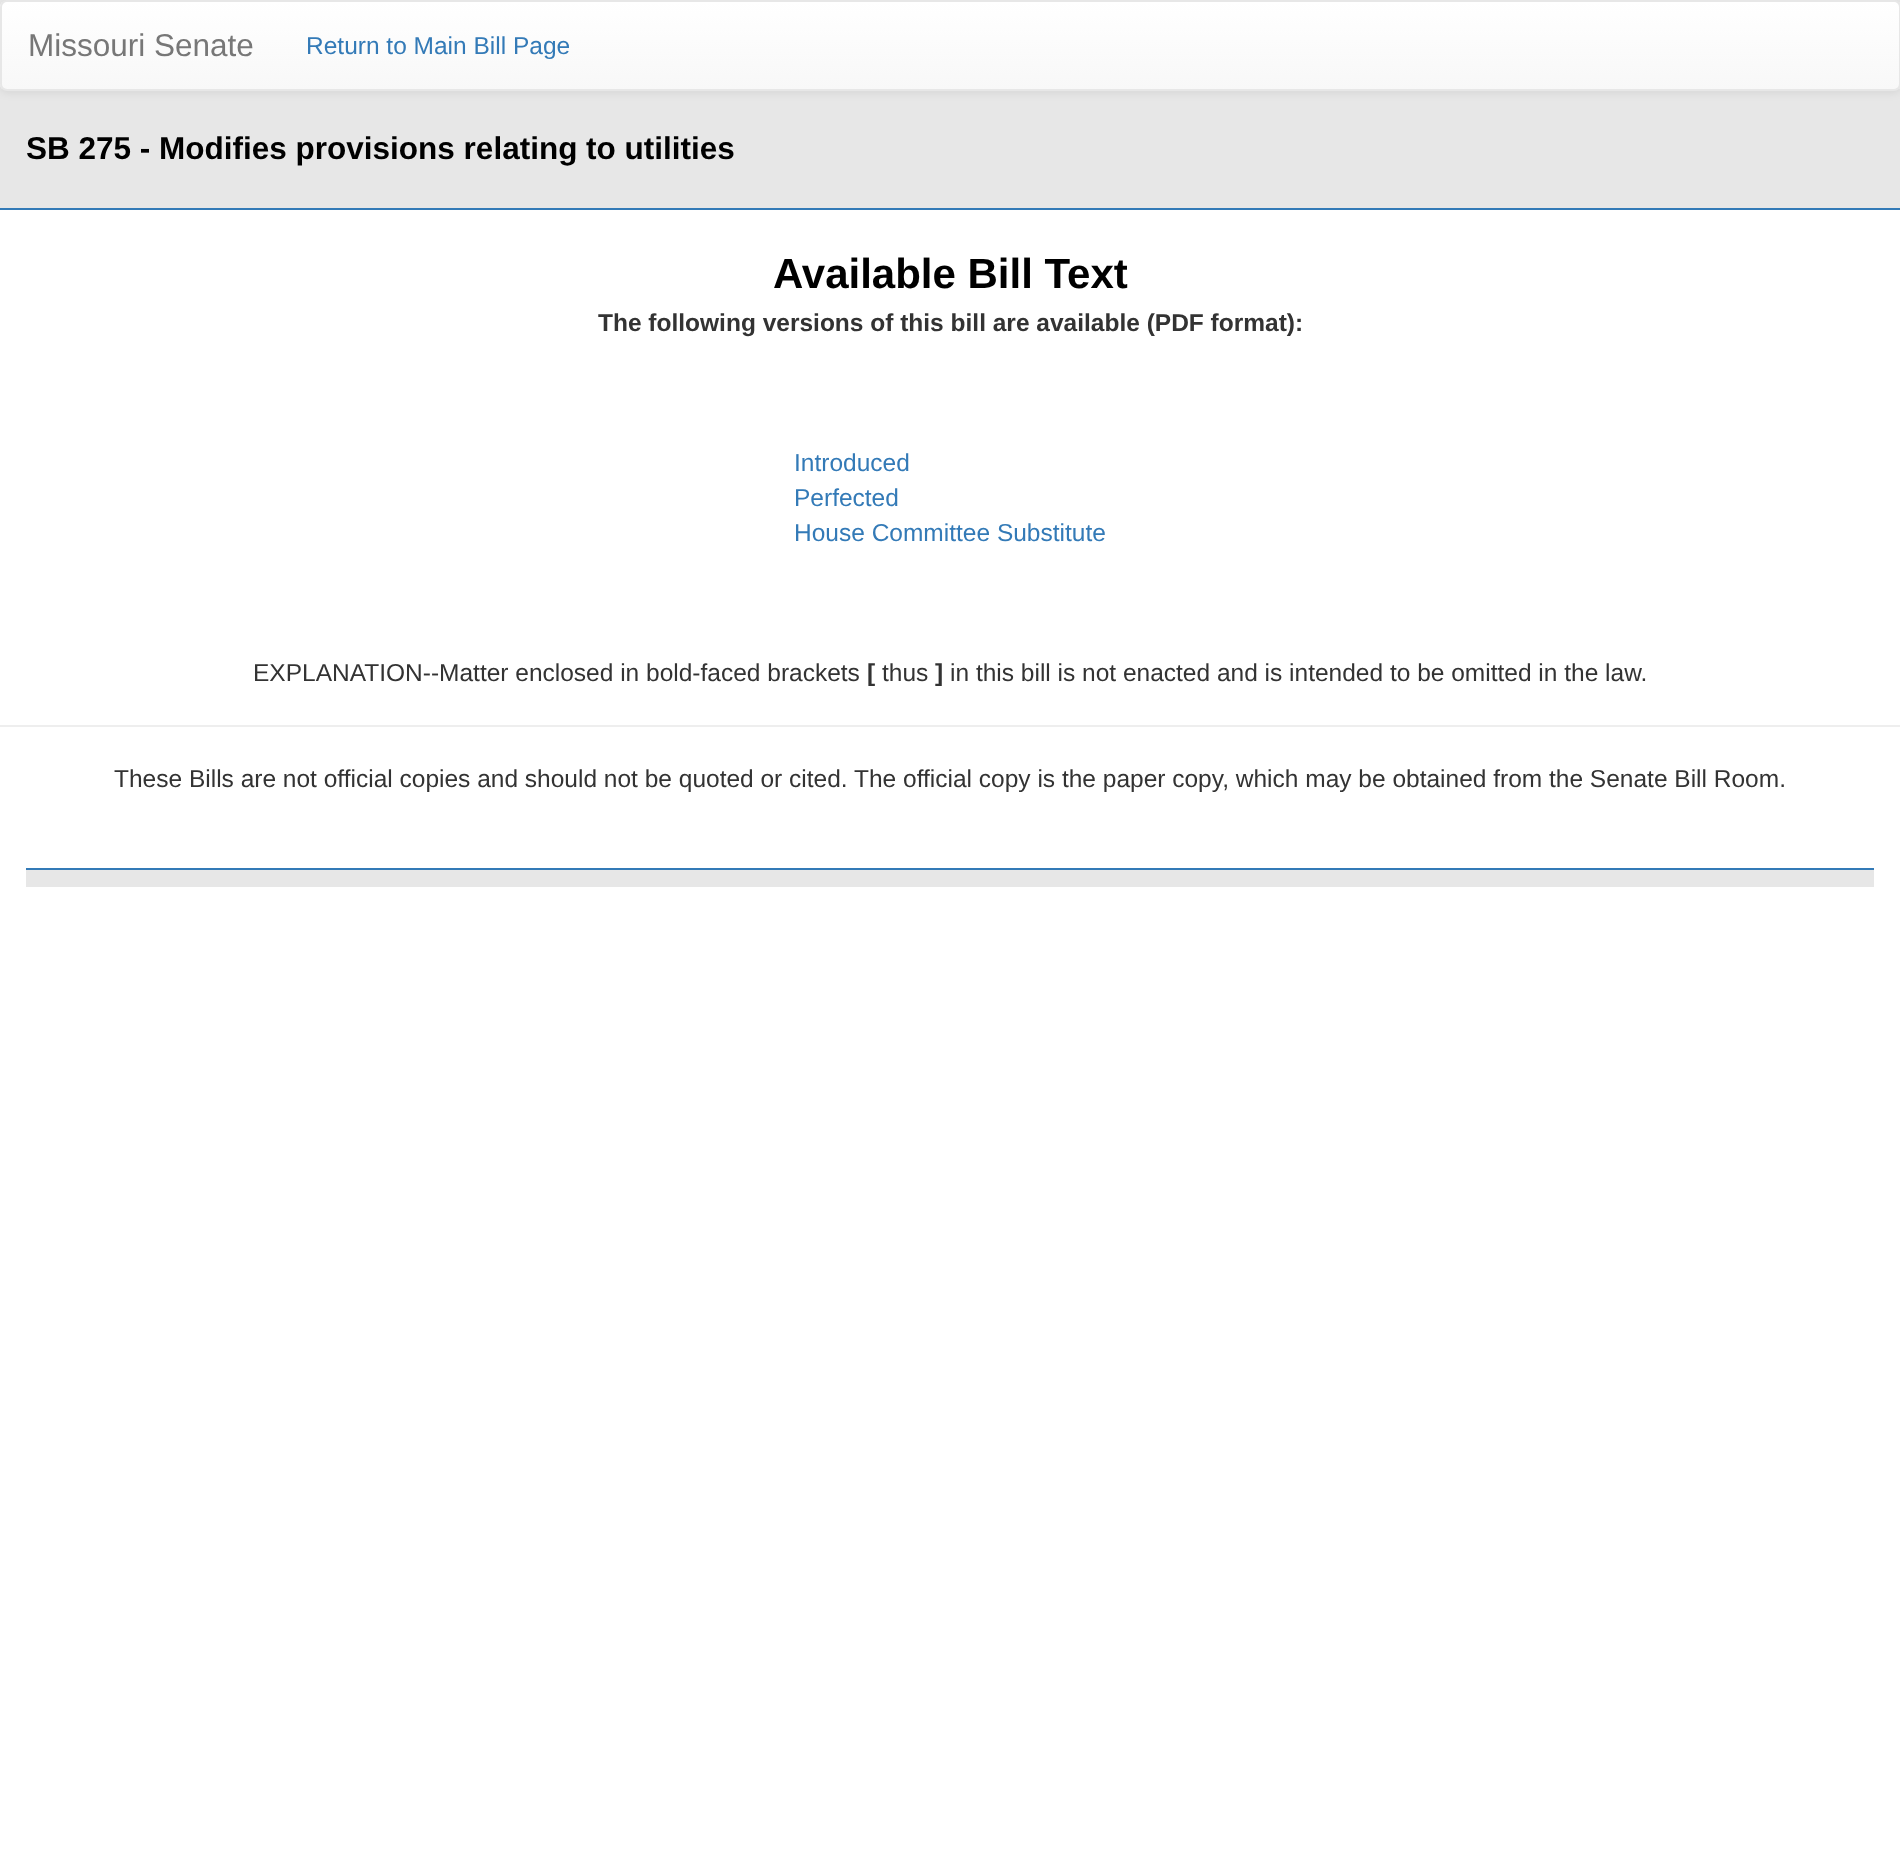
<!DOCTYPE html>
<meta charset="utf-8">
<style>body { margin: 0 } canvas { display: block }</style>
<canvas id="canvas" width="1900" height="1865"></canvas>
<script>
window.onload = function () {
    const canvas = document.getElementById('canvas');
    const context = canvas.getContext('2d');
    context.miterLimit = 4;
    context.fontKerning = 'normal';
    let gradient;

    context.fillStyle = 'rgb(255, 255, 255)';
    context.fillRect(0, 0, 1900, 1865);
    context.fillStyle = 'rgb(231, 231, 231)';
    context.fillRect(0, 0, 1900, 208);
    context.fillStyle = 'rgb(51, 122, 183)';
    context.fillRect(0, 208, 1900, 2);
    context.fillStyle = 'rgba(0, 0, 0, 0.07)';
    context.filter = 'blur(4.5px)';
    context.beginPath();
    context.roundRect(0, 2, 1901, 91, 7);
    context.fill();
    context.filter = 'none';
    context.save();
    context.beginPath();
    context.roundRect(0, 0, 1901, 91, 7);
    context.clip();
    gradient = context.createLinearGradient(950, 1.7, 950, 89);
    gradient.addColorStop(0, 'rgb(255, 255, 255)');
    gradient.addColorStop(1, 'rgb(248, 248, 248)');
    context.fillStyle = gradient;
    context.fillRect(0, 2, 1900, 87);
    context.restore();
    context.beginPath();
    context.roundRect(1, 1, 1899, 89, 6);
    context.strokeStyle = 'rgb(231, 231, 231)';
    context.lineWidth = 2;
    context.stroke();
    context.fillStyle = 'rgb(238, 238, 238)';
    context.fillRect(0, 725, 1900, 2);
    context.fillStyle = 'rgb(231, 231, 231)';
    context.fillRect(26, 870, 1848, 17);
    context.fillStyle = 'rgb(51, 122, 183)';
    context.fillRect(26, 868, 1848, 2);
    context.font = '31.5px Liberation Sans';
    context.fillStyle = 'rgb(119, 119, 119)';
    context.fillText('Missouri Senate', 28, 56);
    context.font = '24.5px Liberation Sans';
    context.fillStyle = 'rgb(51, 122, 183)';
    context.fillText('Return to Main Bill Page', 306, 54);
    context.font = 'bold 31.5px Liberation Sans';
    context.fillStyle = 'rgb(0, 0, 0)';
    context.fillText('SB 275 - Modifies provisions relating to utilities', 26, 159);
    context.font = 'bold 42px Liberation Sans';
    context.fillText('Available Bill Text', 773, 288);
    context.font = 'bold 24.5px Liberation Sans';
    context.fillStyle = 'rgb(51, 51, 51)';
    context.fillText('The following versions of this bill are available (PDF format):', 598, 331);
    context.font = '24.5px Liberation Sans';
    context.fillStyle = 'rgb(51, 122, 183)';
    context.fillText('Introduced', 794, 471);
    context.fillText('Perfected', 794, 506);
    context.fillText('House Committee Substitute', 794, 541);
    context.fillStyle = 'rgb(51, 51, 51)';
    context.fillText('EXPLANATION--Matter enclosed in bold-faced brackets', 253, 681);
    context.font = 'bold 24.5px Liberation Sans';
    context.fillText('[', 867, 681);
    context.font = '24.5px Liberation Sans';
    context.fillText('thus', 882, 681);
    context.font = 'bold 24.5px Liberation Sans';
    context.fillText(']', 935, 681);
    context.font = '24.5px Liberation Sans';
    context.fillText('in this bill is not enacted and is intended to be omitted in the law.', 950, 681);
    context.fillText('These Bills are not official copies and should not be quoted or cited. The official copy is the paper copy, which may be obtained from the Senate Bill Room.', 114, 787);
};
</script>
